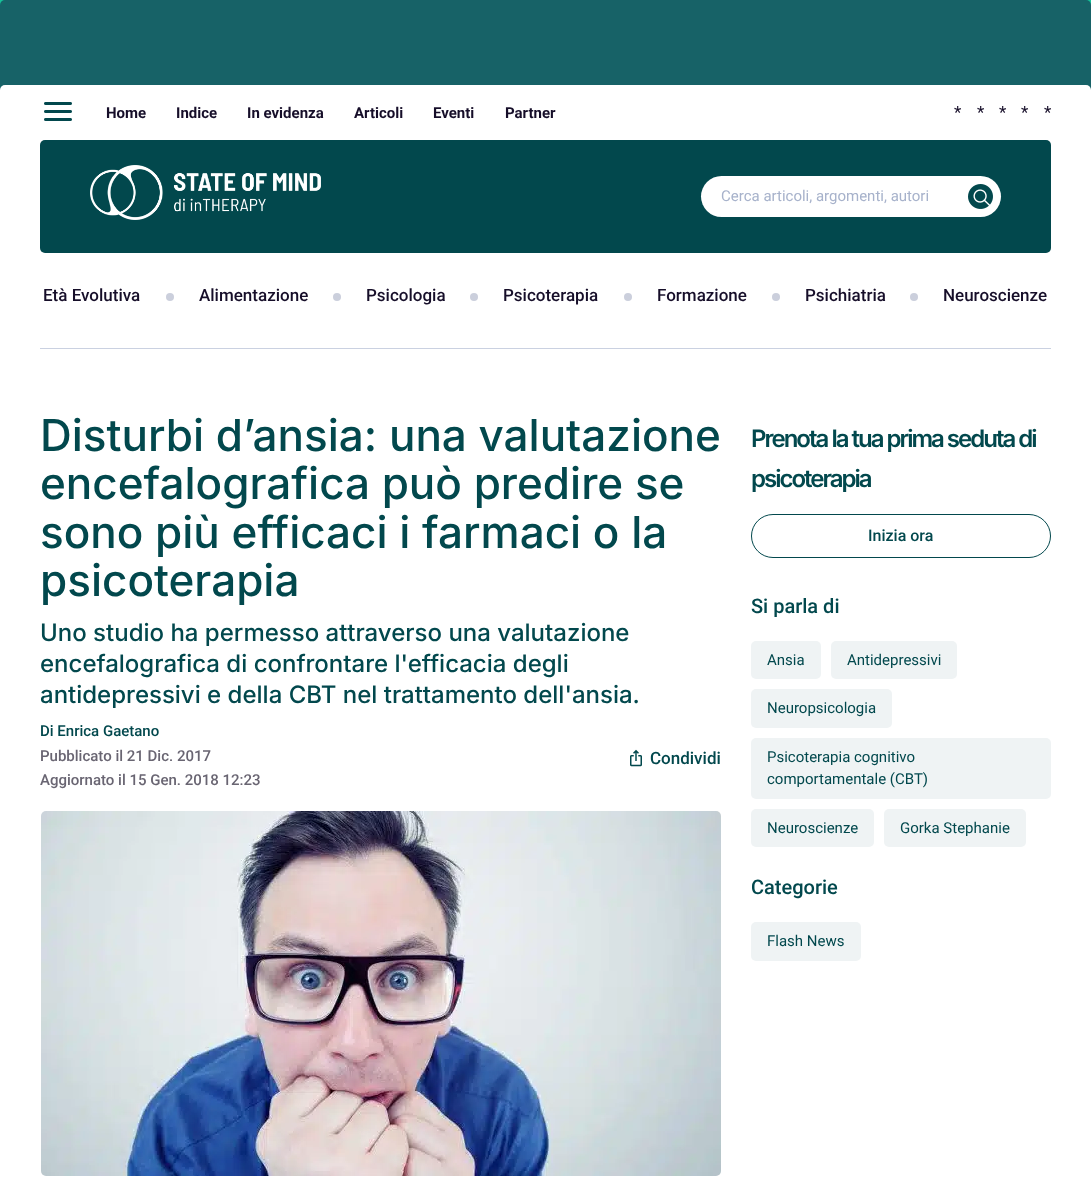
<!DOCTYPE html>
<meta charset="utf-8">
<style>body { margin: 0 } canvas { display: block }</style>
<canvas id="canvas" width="1091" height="1190"></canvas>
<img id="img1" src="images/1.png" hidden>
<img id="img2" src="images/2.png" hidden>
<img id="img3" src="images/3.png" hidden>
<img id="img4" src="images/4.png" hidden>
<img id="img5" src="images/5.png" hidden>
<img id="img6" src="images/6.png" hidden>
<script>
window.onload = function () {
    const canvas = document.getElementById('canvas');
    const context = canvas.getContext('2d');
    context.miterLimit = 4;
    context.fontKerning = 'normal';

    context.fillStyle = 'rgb(22, 195, 153)';
    context.fillRect(0, 0, 1091, 1190);
    context.drawImage(document.getElementById('img1'), 0, 0, 1091, 90);
    context.fillStyle = 'rgb(255, 255, 255)';
    context.beginPath();
    context.roundRect(0, 85, 1091, 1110, 5);
    context.fill();
    context.drawImage(document.getElementById('img2'), 44, 102, 28, 19);
    context.fillStyle = 'rgb(2, 72, 77)';
    context.beginPath();
    context.roundRect(40, 140, 1011, 113, 5);
    context.fill();
    context.drawImage(document.getElementById('img3'), 90, 165, 231, 55);
    context.fillStyle = 'rgb(255, 255, 255)';
    context.beginPath();
    context.roundRect(701, 176, 300, 41, 20.5);
    context.fill();
    context.drawImage(document.getElementById('img4'), 968, 184, 25, 25);
    context.fillStyle = 'rgb(203, 207, 220)';
    context.beginPath();
    context.arc(170, 297, 4, 0, 2 * Math.PI);
    context.fill();
    context.beginPath();
    context.arc(337, 297, 4, 0, 2 * Math.PI);
    context.fill();
    context.beginPath();
    context.arc(474, 297, 4, 0, 2 * Math.PI);
    context.fill();
    context.beginPath();
    context.arc(628, 297, 4, 0, 2 * Math.PI);
    context.fill();
    context.beginPath();
    context.arc(776, 297, 4, 0, 2 * Math.PI);
    context.fill();
    context.beginPath();
    context.arc(914, 297, 4, 0, 2 * Math.PI);
    context.fill();
    context.fillStyle = 'rgb(202, 209, 225)';
    context.fillRect(40, 348, 1011, 1);
    context.drawImage(document.getElementById('img5'), 630, 749, 12, 18);
    context.drawImage(document.getElementById('img6'), 41, 811, 680, 365);
    context.beginPath();
    context.roundRect(751.5, 514.5, 299, 43, 21.5);
    context.strokeStyle = 'rgb(2, 72, 77)';
    context.stroke();
    context.fillStyle = 'rgb(239, 243, 244)';
    context.beginPath();
    context.roundRect(751, 641, 70, 38, 5);
    context.fill();
    context.beginPath();
    context.roundRect(831, 641, 126, 38, 5);
    context.fill();
    context.beginPath();
    context.roundRect(751, 689, 141, 39, 5);
    context.fill();
    context.beginPath();
    context.roundRect(751, 738, 300, 61, 5);
    context.fill();
    context.beginPath();
    context.roundRect(751, 809, 123, 38, 5);
    context.fill();
    context.beginPath();
    context.roundRect(884, 809, 142, 38, 5);
    context.fill();
    context.beginPath();
    context.roundRect(751, 922, 110, 39, 5);
    context.fill();
    context.font = 'bold 15px Roboto';
    context.fillStyle = 'rgb(22, 14, 41)';
    context.fillText('Home', 106, 118);
    context.fillText('Indice', 176, 118);
    context.fillText('In evidenza', 247, 118);
    context.fillText('Articoli', 354, 118);
    context.fillText('Eventi', 433, 118);
    context.fillText('Partner', 505, 118);
    context.font = '17px Roboto';
    context.fillText('*', 954, 118);
    context.fillText('*', 977, 118);
    context.fillText('*', 999, 118);
    context.fillText('*', 1021, 118);
    context.fillText('*', 1044, 118);
    context.font = '15px Roboto';
    context.fillStyle = 'rgb(167, 178, 203)';
    context.fillText('Cerca articoli, argomenti, autori', 721, 201);
    context.font = '500 17px Roboto';
    context.fillStyle = 'rgb(22, 14, 41)';
    context.fillText('Età Evolutiva', 43, 301);
    context.fillText('Alimentazione', 199, 301);
    context.fillText('Psicologia', 366, 301);
    context.fillText('Psicoterapia', 503, 301);
    context.fillText('Formazione', 657, 301);
    context.fillText('Psichiatria', 805, 301);
    context.fillText('Neuroscienze', 943, 301);
    context.font = '500 44px Inter';
    context.fillStyle = 'rgb(2, 72, 77)';
    context.fillText('Disturbi d’ansia: una valutazione', 40, 451);
    context.fillText('encefalografica può predire se', 40, 499);
    context.fillText('sono più efficaci i farmaci o la', 40, 548);
    context.fillText('psicoterapia', 40, 596);
    context.font = '500 24px Inter';
    context.fillText('Uno studio ha permesso attraverso una valutazione', 40, 641);
    context.fillText('encefalografica di confrontare l\'efficacia degli', 40, 672);
    context.fillText('antidepressivi e della CBT nel trattamento dell\'ansia.', 40, 703);
    context.font = '500 15px Roboto';
    context.fillText('Di Enrica Gaetano', 40, 736);
    context.fillStyle = 'rgb(105, 101, 114)';
    context.fillText('Pubblicato il 21 Dic. 2017', 40, 761);
    context.fillText('Aggiornato il 15 Gen. 2018 12:23', 40, 785);
    context.font = '500 17px Roboto';
    context.fillStyle = 'rgb(2, 72, 77)';
    context.fillText('Condividi', 650, 764);
    context.letterSpacing = '-2px';
    context.font = '600 24px Inter';
    context.fillText('Prenota la tua prima seduta di', 751, 447);
    context.fillText('psicoterapia', 751, 487);
    context.letterSpacing = '0px';
    context.font = '500 16px Roboto';
    context.fillText('Inizia ora', 868, 541);
    context.font = '500 20px Roboto';
    context.fillText('Si parla di', 751, 613);
    context.font = '15px Roboto';
    context.fillText('Ansia', 767, 665);
    context.fillText('Antidepressivi', 847, 665);
    context.fillText('Neuropsicologia', 767, 713);
    context.fillText('Psicoterapia cognitivo', 767, 762);
    context.fillText('comportamentale (CBT)', 767, 784);
    context.fillText('Neuroscienze', 767, 833);
    context.fillText('Gorka Stephanie', 900, 833);
    context.font = '500 20px Roboto';
    context.fillText('Categorie', 751, 894);
    context.font = '15px Roboto';
    context.fillText('Flash News', 767, 946);
};
</script>
